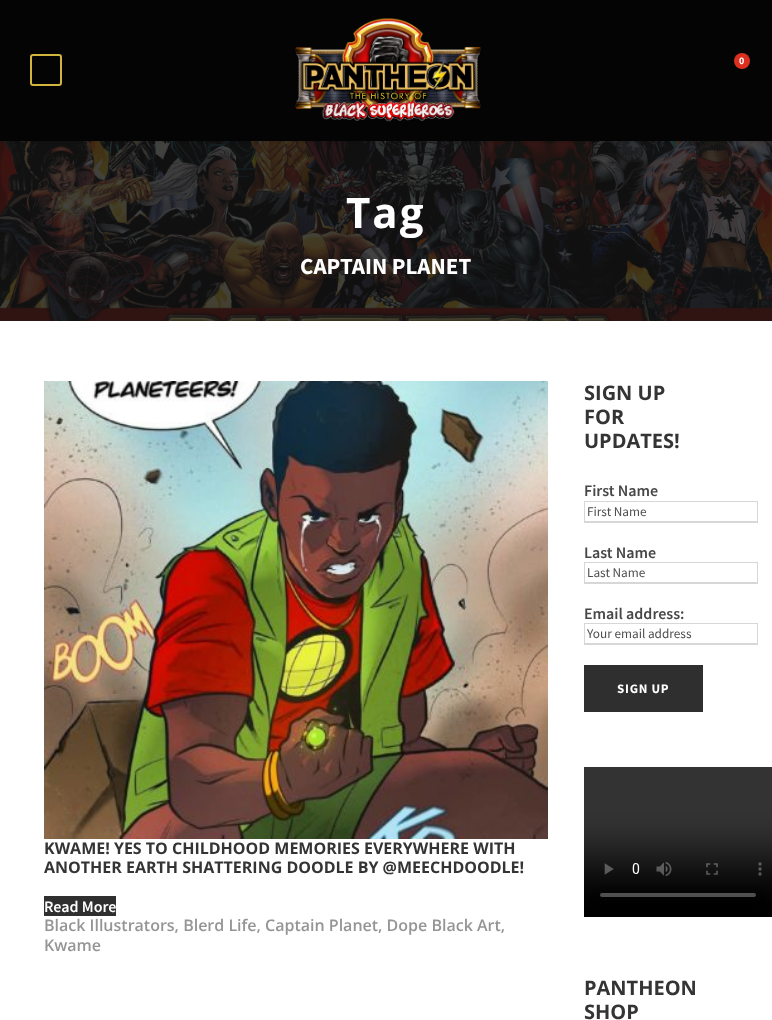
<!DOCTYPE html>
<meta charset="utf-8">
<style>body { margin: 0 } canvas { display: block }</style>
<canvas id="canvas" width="772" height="1020"></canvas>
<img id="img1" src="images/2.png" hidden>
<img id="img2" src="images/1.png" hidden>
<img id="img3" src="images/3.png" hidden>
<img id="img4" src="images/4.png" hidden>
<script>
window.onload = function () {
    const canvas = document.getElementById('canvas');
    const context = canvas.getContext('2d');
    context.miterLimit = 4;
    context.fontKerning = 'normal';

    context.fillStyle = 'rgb(255, 255, 255)';
    context.fillRect(0, 0, 772, 1020);
    context.drawImage(document.getElementById('img1'), 0, 141, 772, 180);
    context.fillStyle = 'rgba(0, 0, 0, 0.1)';
    context.filter = 'blur(1px)';
    context.beginPath();
    context.rect(0, 1, 772, 141);
    context.fill();
    context.filter = 'none';
    context.fillStyle = 'rgb(4, 4, 4)';
    context.fillRect(0, 0, 772, 141);
    context.beginPath();
    context.roundRect(31, 55, 30, 30, 2);
    context.strokeStyle = 'rgb(209, 181, 60)';
    context.lineWidth = 2;
    context.stroke();
    context.drawImage(document.getElementById('img2'), 295, 18, 186, 104);
    context.fillStyle = 'rgb(219, 48, 32)';
    context.beginPath();
    context.arc(742, 61, 8, 0, 2 * Math.PI);
    context.fill();
    context.drawImage(document.getElementById('img3'), 44, 381, 504, 458);
    context.fillStyle = 'rgb(47, 47, 47)';
    context.fillRect(44, 896, 72, 20);
    context.fillStyle = 'rgb(215, 215, 215)';
    context.fillRect(584, 501, 174, 1);
    context.fillRect(757, 501, 1, 22);
    context.fillRect(584, 521, 174, 2);
    context.fillRect(584, 501, 1, 22);
    context.fillRect(584, 562, 174, 1);
    context.fillRect(757, 562, 1, 22);
    context.fillRect(584, 582, 174, 2);
    context.fillRect(584, 562, 1, 22);
    context.fillRect(584, 623, 174, 1);
    context.fillRect(757, 623, 1, 22);
    context.fillRect(584, 643, 174, 2);
    context.fillRect(584, 623, 1, 22);
    context.fillStyle = 'rgb(47, 47, 47)';
    context.fillRect(584, 665, 119, 47);
    context.drawImage(document.getElementById('img4'), 584, 767, 188, 150);
    context.font = 'bold 10px Source Sans Pro';
    context.fillStyle = 'rgb(255, 255, 255)';
    context.fillText('0', 739, 64);
    context.letterSpacing = '2px';
    context.font = 'bold 42px Open Sans';
    context.fillText('Tag', 346, 228);
    context.letterSpacing = '0px';
    context.font = 'bold 23px Source Sans Pro';
    context.fillText('CAPTAIN PLANET', 300, 274);
    context.font = 'bold 16px Open Sans';
    context.fillStyle = 'rgb(52, 52, 52)';
    context.fillText('KWAME! YES TO CHILDHOOD MEMORIES EVERYWHERE WITH', 44, 854);
    context.fillText('ANOTHER EARTH SHATTERING DOODLE BY @MEECHDOODLE!', 44, 873);
    context.font = '600 16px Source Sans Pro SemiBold';
    context.fillStyle = 'rgb(255, 255, 255)';
    context.fillText('Read More', 44, 912);
    context.font = '600 16px Open Sans';
    context.fillStyle = 'rgb(149, 149, 149)';
    context.fillText('Black Illustrators, Blerd Life, Captain Planet, Dope Black Art,', 44, 931);
    context.fillText('Kwame', 44, 951);
    context.font = 'bold 20px Open Sans';
    context.fillStyle = 'rgb(52, 52, 52)';
    context.fillText('SIGN UP', 584, 400);
    context.fillText('FOR', 584, 424);
    context.fillText('UPDATES!', 584, 448);
    context.font = '600 16px Source Sans Pro SemiBold';
    context.fillStyle = 'rgb(71, 71, 71)';
    context.fillText('First Name', 584, 496);
    context.font = '13.25px Source Sans Pro';
    context.fillStyle = 'rgb(78, 78, 78)';
    context.fillText('First Name', 587, 516);
    context.font = '600 16px Source Sans Pro SemiBold';
    context.fillStyle = 'rgb(71, 71, 71)';
    context.fillText('Last Name', 584, 558);
    context.font = '13.25px Source Sans Pro';
    context.fillStyle = 'rgb(78, 78, 78)';
    context.fillText('Last Name', 587, 577);
    context.font = '600 16px Source Sans Pro SemiBold';
    context.fillStyle = 'rgb(71, 71, 71)';
    context.fillText('Email address:', 584, 619);
    context.font = '13.25px Source Sans Pro';
    context.fillStyle = 'rgb(78, 78, 78)';
    context.fillText('Your email address', 587, 638);
    context.letterSpacing = '0.75px';
    context.font = 'bold 13px Source Sans Pro';
    context.fillStyle = 'rgb(255, 255, 255)';
    context.fillText('SIGN UP', 617, 693);
    context.letterSpacing = '0px';
    context.font = 'bold 20px Open Sans';
    context.fillStyle = 'rgb(52, 52, 52)';
    context.fillText('PANTHEON', 584, 995);
    context.fillText('SHOP', 584, 1019);
};
</script>
